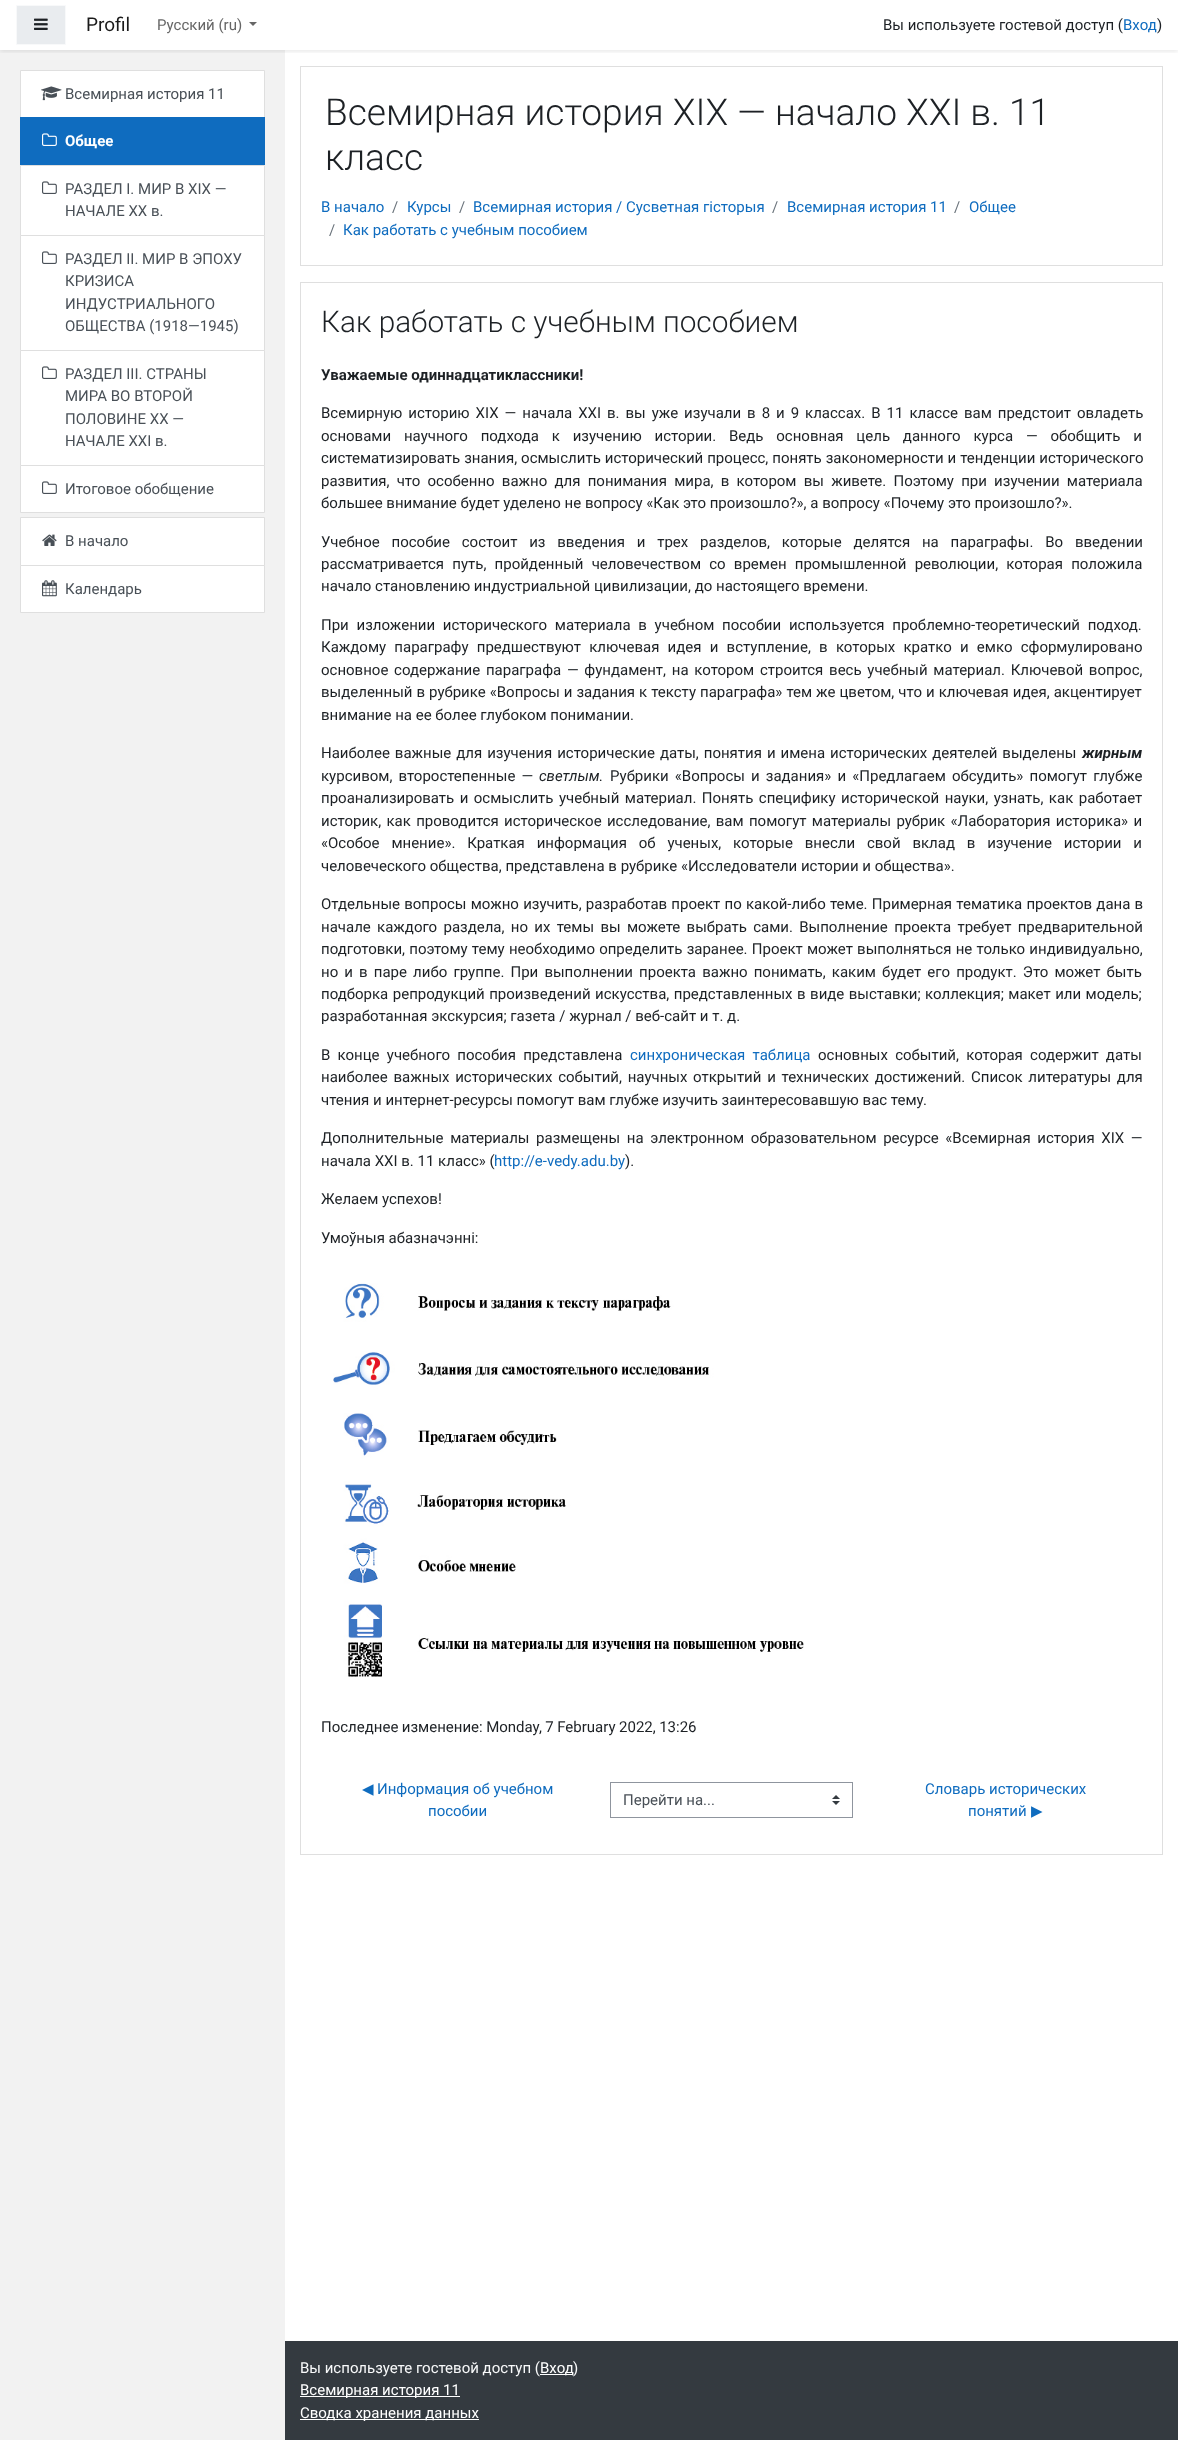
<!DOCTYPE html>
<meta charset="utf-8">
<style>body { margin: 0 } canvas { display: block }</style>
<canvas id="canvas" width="1178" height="2440"></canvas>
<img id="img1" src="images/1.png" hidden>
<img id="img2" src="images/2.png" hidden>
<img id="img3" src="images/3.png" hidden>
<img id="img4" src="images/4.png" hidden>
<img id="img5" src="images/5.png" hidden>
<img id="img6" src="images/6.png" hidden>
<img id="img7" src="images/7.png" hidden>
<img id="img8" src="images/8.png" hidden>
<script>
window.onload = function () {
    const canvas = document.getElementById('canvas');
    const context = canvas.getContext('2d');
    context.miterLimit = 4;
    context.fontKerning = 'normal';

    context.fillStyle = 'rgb(255, 255, 255)';
    context.fillRect(0, 0, 1178, 2440);
    context.fillStyle = 'rgb(242, 242, 242)';
    context.fillRect(0, 50, 285, 2390);
    context.save();
    context.beginPath();
    context.rect(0, 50, 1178, 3);
    context.clip();
    context.fillStyle = 'rgba(0, 0, 0, 0.08)';
    context.filter = 'blur(2px)';
    context.beginPath();
    context.rect(0, 2, 1178, 50);
    context.fill();
    context.filter = 'none';
    context.restore();
    context.fillStyle = 'rgb(233, 236, 239)';
    context.beginPath();
    context.rect(16.5, 5.5, 49, 39);
    context.fill();
    context.strokeStyle = 'rgb(248, 249, 250)';
    context.stroke();
    context.drawImage(document.getElementById('img1'), 34, 18, 14, 12);
    context.fillStyle = 'rgb(102, 102, 102)';
    context.beginPath();
    context.moveTo(249, 22);
    context.lineTo(257, 22);
    context.lineTo(253, 26);
    context.closePath();
    context.fill();
    context.fillStyle = 'rgb(255, 255, 255)';
    context.beginPath();
    context.rect(20.5, 70.5, 244, 47);
    context.fill();
    context.strokeStyle = 'rgb(223, 223, 223)';
    context.stroke();
    context.drawImage(document.getElementById('img2'), 41, 86, 21, 15);
    context.fillStyle = 'rgb(15, 108, 191)';
    context.fillRect(20, 117, 245, 48);
    context.drawImage(document.getElementById('img3'), 42, 133, 15, 13);
    context.fillStyle = 'rgb(255, 255, 255)';
    context.beginPath();
    context.rect(20.5, 165.5, 244, 70);
    context.fill();
    context.stroke();
    context.drawImage(document.getElementById('img4'), 42, 181, 15, 13);
    context.beginPath();
    context.rect(20.5, 235.5, 244, 115);
    context.fill();
    context.stroke();
    context.drawImage(document.getElementById('img4'), 42, 251, 15, 13);
    context.beginPath();
    context.rect(20.5, 350.5, 244, 115);
    context.fill();
    context.stroke();
    context.drawImage(document.getElementById('img4'), 42, 366, 15, 13);
    context.beginPath();
    context.rect(20.5, 465.5, 244, 47);
    context.fill();
    context.stroke();
    context.drawImage(document.getElementById('img4'), 42, 481, 15, 13);
    context.beginPath();
    context.rect(20.5, 517.5, 244, 48);
    context.fill();
    context.stroke();
    context.drawImage(document.getElementById('img5'), 42, 534, 15, 12);
    context.beginPath();
    context.rect(20.5, 565.5, 244, 47);
    context.fill();
    context.stroke();
    context.drawImage(document.getElementById('img6'), 42, 580, 15, 17);
    context.strokeRect(300.5, 66.5, 862, 199);
    context.strokeRect(300.5, 282.5, 862, 1572);
    context.drawImage(document.getElementById('img7'), 333, 1283, 471, 394);
    context.drawImage(document.getElementById('img8'), 832, 1795, 8, 10);
    context.strokeStyle = 'rgb(143, 149, 158)';
    context.strokeRect(610.5, 1782.5, 242, 35);
    context.fillStyle = 'rgb(52, 58, 64)';
    context.fillRect(285, 2341, 893, 99);
    context.fillStyle = 'rgb(255, 255, 255)';
    context.fillRect(540, 2374, 33, 1);
    context.fillRect(300, 2396, 160, 1);
    context.fillRect(300, 2419, 179, 1);
    context.font = '19px Roboto';
    context.fillStyle = 'rgb(26, 26, 26)';
    context.fillText('Profil', 86, 31);
    context.font = '15px Roboto';
    context.fillStyle = 'rgb(102, 102, 102)';
    context.fillText('Русский (ru)', 157, 30);
    context.fillStyle = 'rgb(29, 33, 37)';
    context.fillText('Вы используете гостевой доступ (', 883, 30);
    context.fillStyle = 'rgb(15, 108, 191)';
    context.fillText('Вход', 1123, 30);
    context.fillStyle = 'rgb(29, 33, 37)';
    context.fillText(')', 1157, 30);
    context.fillStyle = 'rgb(73, 80, 87)';
    context.fillText('Всемирная история 11', 65, 99);
    context.font = 'bold 15px Roboto';
    context.fillStyle = 'rgb(255, 255, 255)';
    context.fillText('Общее', 65, 146);
    context.font = '15px Roboto';
    context.fillStyle = 'rgb(73, 80, 87)';
    context.fillText('РАЗДЕЛ I. МИР В ХIХ —', 65, 194);
    context.fillText('НАЧАЛЕ ХХ в.', 65, 216);
    context.fillText('РАЗДЕЛ II. МИР В ЭПОХУ', 65, 264);
    context.fillText('КРИЗИСА', 65, 286);
    context.fillText('ИНДУСТРИАЛЬНОГО', 65, 309);
    context.fillText('ОБЩЕСТВА (1918—1945)', 65, 331);
    context.fillText('РАЗДЕЛ ІІІ. СТРАНЫ', 65, 379);
    context.fillText('МИРА ВО ВТОРОЙ', 65, 401);
    context.fillText('ПОЛОВИНЕ ХХ —', 65, 424);
    context.fillText('НАЧАЛЕ ХХІ в.', 65, 446);
    context.fillText('Итоговое обобщение', 65, 494);
    context.fillText('В начало', 65, 546);
    context.fillText('Календарь', 65, 594);
    context.font = '300 37.1px Roboto';
    context.fillStyle = 'rgb(29, 33, 37)';
    context.fillText('Всемирная история ХІХ — начало ХХІ в. 11', 325, 125);
    context.fillText('класс', 325, 170);
    context.font = '15px Roboto';
    context.fillStyle = 'rgb(15, 108, 191)';
    context.fillText('В начало', 321, 212);
    context.fillStyle = 'rgb(106, 115, 123)';
    context.fillText('/', 392, 212);
    context.fillStyle = 'rgb(15, 108, 191)';
    context.fillText('Курсы', 407, 212);
    context.fillStyle = 'rgb(106, 115, 123)';
    context.fillText('/', 459, 212);
    context.fillStyle = 'rgb(15, 108, 191)';
    context.fillText('Всемирная история / Сусветная гісторыя', 473, 212);
    context.fillStyle = 'rgb(106, 115, 123)';
    context.fillText('/', 772, 212);
    context.fillStyle = 'rgb(15, 108, 191)';
    context.fillText('Всемирная история 11', 787, 212);
    context.fillStyle = 'rgb(106, 115, 123)';
    context.fillText('/', 954, 212);
    context.fillStyle = 'rgb(15, 108, 191)';
    context.fillText('Общее', 969, 212);
    context.fillStyle = 'rgb(106, 115, 123)';
    context.fillText('/', 329, 235);
    context.fillStyle = 'rgb(15, 108, 191)';
    context.fillText('Как работать с учебным пособием', 343, 235);
    context.font = '300 29.75px Roboto';
    context.fillStyle = 'rgb(29, 33, 37)';
    context.fillText('Как работать с учебным пособием', 321, 332);
    context.font = 'bold 15px Roboto';
    context.fillText('Уважаемые одиннадцатиклассники!', 321, 380);
    context.wordSpacing = '2.25px';
    context.font = '15px Roboto';
    context.fillText('Всемирную историю XIX — начала XXI в. вы уже изучали в 8 и 9 классах. В 11 классе вам предстоит овладеть', 321, 418);
    context.wordSpacing = '9.1px';
    context.fillText('основами научного подхода к изучению истории. Ведь основная цель данного курса — обобщить и', 321, 441);
    context.wordSpacing = '0.25px';
    context.fillText('систематизировать знания, осмыслить исторический процесс, понять закономерности и тенденции исторического', 321, 463);
    context.wordSpacing = '3.5px';
    context.fillText('развития, что особенно важно для понимания мира, в котором вы живете. Поэтому при изучении материала', 321, 486);
    context.wordSpacing = '0px';
    context.fillText('большее внимание будет уделено не вопросу «Как это произошло?», а вопросу «Почему это произошло?».', 321, 508);
    context.wordSpacing = '8.1px';
    context.fillText('Учебное пособие состоит из введения и трех разделов, которые делятся на параграфы. Во введении', 321, 547);
    context.wordSpacing = '4.5px';
    context.fillText('рассматривается путь, пройденный человечеством со времен промышленной революции, которая положила', 321, 569);
    context.wordSpacing = '0px';
    context.fillText('начало становлению индустриальной цивилизации, до настоящего времени.', 321, 591);
    context.wordSpacing = '4px';
    context.fillText('При изложении исторического материала в учебном пособии используется проблемно-теоретический подход.', 321, 630);
    context.wordSpacing = '4.5px';
    context.fillText('Каждому параграфу предшествуют ключевая идея и вступление, в которых кратко и емко сформулировано', 321, 652);
    context.wordSpacing = '2px';
    context.fillText('основное содержание параграфа — фундамент, на котором строится весь учебный материал. Ключевой вопрос,', 321, 675);
    context.wordSpacing = '0.3px';
    context.fillText('выделенный в рубрике «Вопросы и задания к тексту параграфа» тем же цветом, что и ключевая идея, акцентирует', 321, 697);
    context.wordSpacing = '0px';
    context.fillText('внимание на ее более глубоком понимании.', 321, 720);
    context.wordSpacing = '1.25px';
    context.fillText('Наиболее важные для изучения исторические даты, понятия и имена исторических деятелей выделены', 321, 758);
    context.wordSpacing = '0px';
    context.font = 'italic bold 15px Roboto';
    context.fillText('жирным', 1082, 758);
    context.wordSpacing = '2.4px';
    context.font = '15px Roboto';
    context.fillText('курсивом, второстепенные —', 321, 781);
    context.wordSpacing = '0px';
    context.font = 'italic 15px Roboto';
    context.fillText('светлым.', 539, 781);
    context.wordSpacing = '2.4px';
    context.font = '15px Roboto';
    context.fillText('Рубрики «Вопросы и задания» и «Предлагаем обсудить» помогут глубже', 610, 781);
    context.wordSpacing = '1.75px';
    context.fillText('проанализировать и осмыслить учебный материал. Понять специфику исторической науки, узнать, как работает', 321, 803);
    context.wordSpacing = '1.6px';
    context.fillText('историк, как проводится историческое исследование, вам помогут материалы рубрик «Лаборатория историка» и', 321, 826);
    context.wordSpacing = '8.1px';
    context.fillText('«Особое мнение». Краткая информация об ученых, которые внесли свой вклад в изучение истории и', 321, 848);
    context.wordSpacing = '0px';
    context.fillText('человеческого общества, представлена в рубрике «Исследователи истории и общества».', 321, 871);
    context.wordSpacing = '0.5px';
    context.fillText('Отдельные вопросы можно изучить, разработав проект по какой-либо теме. Примерная тематика проектов дана в', 321, 909);
    context.wordSpacing = '2.6px';
    context.fillText('начале каждого раздела, но их темы вы можете выбрать сами. Выполнение проекта требует предварительной', 321, 932);
    context.wordSpacing = '0.5px';
    context.fillText('подготовки, поэтому тему необходимо определить заранее. Проект может выполняться не только индивидуально,', 321, 954);
    context.wordSpacing = '2.4px';
    context.fillText('но и в паре либо группе. При выполнении проекта важно понимать, каким будет его продукт. Это может быть', 321, 977);
    context.wordSpacing = '0.75px';
    context.fillText('подборка репродукций произведений искусства, представленных в виде выставки; коллекция; макет или модель;', 321, 999);
    context.wordSpacing = '0px';
    context.fillText('разработанная экскурсия; газета / журнал / веб-сайт и т. д.', 321, 1021);
    context.wordSpacing = '3.5px';
    context.fillText('В конце учебного пособия представлена', 321, 1060);
    context.fillStyle = 'rgb(15, 108, 191)';
    context.fillText('синхроническая таблица', 630, 1060);
    context.fillStyle = 'rgb(29, 33, 37)';
    context.fillText('основных событий, которая содержит даты', 818, 1060);
    context.wordSpacing = '2px';
    context.fillText('наиболее важных исторических событий, научных открытий и технических достижений. Список литературы для', 321, 1082);
    context.wordSpacing = '0px';
    context.fillText('чтения и интернет-ресурсы помогут вам глубже изучить заинтересовавшую вас тему.', 321, 1105);
    context.wordSpacing = '2.9px';
    context.fillText('Дополнительные материалы размещены на электронном образовательном ресурсе «Всемирная история ХIХ —', 321, 1143);
    context.wordSpacing = '0px';
    context.fillText('начала ХХІ в. 11 класс» (', 321, 1166);
    context.fillStyle = 'rgb(15, 108, 191)';
    context.fillText('http://e-vedy.adu.by', 494, 1166);
    context.fillStyle = 'rgb(29, 33, 37)';
    context.fillText(').', 625, 1166);
    context.fillText('Желаем успехов!', 321, 1204);
    context.fillText('Умоўныя абазначэнні:', 321, 1243);
    context.wordSpacing = '-0.25px';
    context.fillText('Последнее изменение: Monday, 7 February 2022, 13:26', 321, 1732);
    context.wordSpacing = '0px';
    context.font = '15px DejaVu Sans';
    context.fillStyle = 'rgb(15, 108, 191)';
    context.fillText('◀︎', 362, 1794);
    context.font = '15px Roboto';
    context.fillText('Информация об учебном', 377, 1794);
    context.fillText('пособии', 428, 1816);
    context.fillStyle = 'rgb(73, 80, 87)';
    context.fillText('Перейти на...', 623, 1805);
    context.fillStyle = 'rgb(15, 108, 191)';
    context.fillText('Словарь исторических', 925, 1794);
    context.fillText('понятий', 968, 1816);
    context.font = '15px DejaVu Sans';
    context.fillText('▶︎', 1031, 1816);
    context.font = '15px Roboto';
    context.fillStyle = 'rgb(248, 249, 250)';
    context.fillText('Вы используете гостевой доступ (', 300, 2373);
    context.fillStyle = 'rgb(255, 255, 255)';
    context.fillText('Вход', 540, 2373);
    context.fillStyle = 'rgb(248, 249, 250)';
    context.fillText(')', 573, 2373);
    context.fillStyle = 'rgb(255, 255, 255)';
    context.fillText('Всемирная история 11', 300, 2395);
    context.fillText('Сводка хранения данных', 300, 2418);
};
</script>
